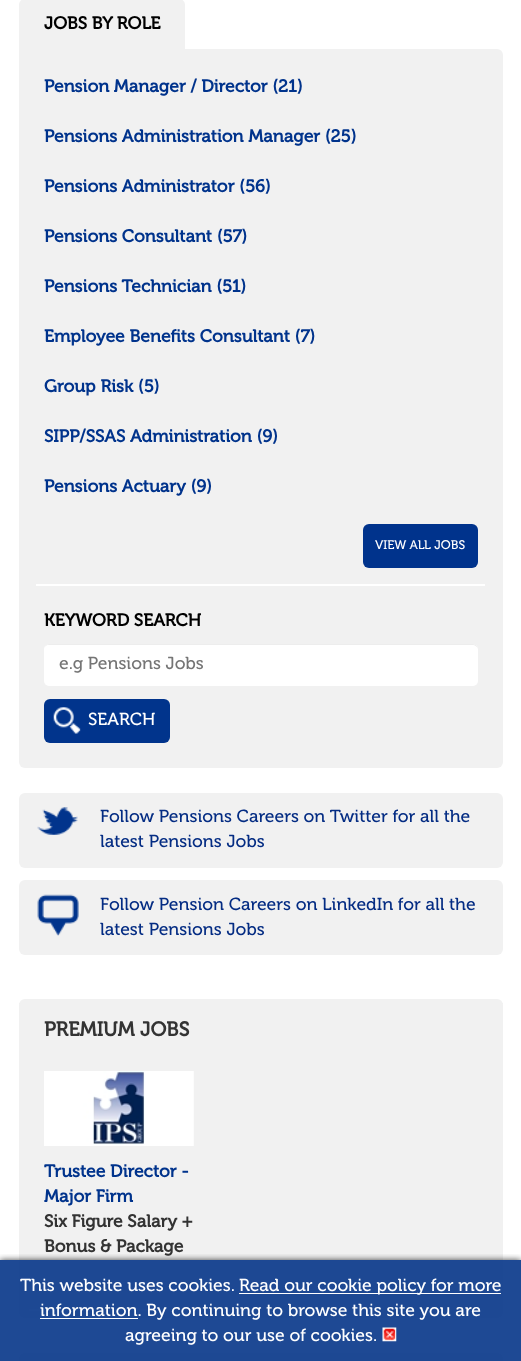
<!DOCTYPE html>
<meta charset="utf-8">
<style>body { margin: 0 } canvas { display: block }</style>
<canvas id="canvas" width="521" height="1361"></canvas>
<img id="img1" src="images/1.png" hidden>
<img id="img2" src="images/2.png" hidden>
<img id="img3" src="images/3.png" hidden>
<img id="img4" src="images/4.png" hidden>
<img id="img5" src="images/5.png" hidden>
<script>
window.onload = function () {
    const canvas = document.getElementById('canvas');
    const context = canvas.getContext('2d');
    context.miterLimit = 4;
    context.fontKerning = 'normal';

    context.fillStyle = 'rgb(255, 255, 255)';
    context.fillRect(0, 0, 521, 1361);
    context.fillStyle = 'rgb(241, 241, 241)';
    context.beginPath();
    context.moveTo(25, -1);
    context.lineTo(179, -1);
    context.bezierCurveTo(182.5, -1, 185, 1.5, 185, 5);
    context.lineTo(185, 49);
    context.lineTo(19, 49);
    context.lineTo(19, 5);
    context.bezierCurveTo(19, 1.5, 21.5, -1, 25, -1);
    context.closePath();
    context.fill();
    context.beginPath();
    context.roundRect(19, 49, 484, 537, [0, 6, 0, 0]);
    context.fill();
    context.fillStyle = 'rgb(0, 51, 140)';
    context.beginPath();
    context.roundRect(363, 524, 115, 44, 6);
    context.fill();
    context.fillStyle = 'rgb(255, 255, 255)';
    context.fillRect(36, 584, 449, 2);
    context.fillStyle = 'rgb(241, 241, 241)';
    context.beginPath();
    context.roundRect(19, 586, 484, 182, [0, 0, 6, 6]);
    context.fill();
    context.fillStyle = 'rgb(255, 255, 255)';
    context.beginPath();
    context.roundRect(44, 644, 434, 42, 5);
    context.fill();
    context.fillStyle = 'rgba(0, 0, 0, 0.07)';
    context.beginPath();
    context.moveTo(49, 645);
    context.lineTo(472, 645);
    context.bezierCurveTo(475, 645, 478, 647, 478, 650);
    context.bezierCurveTo(478, 647, 476, 644, 473, 644);
    context.lineTo(49, 644);
    context.bezierCurveTo(46, 644, 44, 647, 44, 650);
    context.bezierCurveTo(44, 647, 46, 645, 49, 645);
    context.closePath();
    context.fill();
    context.fillStyle = 'rgb(1, 52, 140)';
    context.beginPath();
    context.roundRect(44, 699, 126, 44, 6);
    context.fill();
    context.drawImage(document.getElementById('img1'), 53, 707, 28, 27);
    context.fillStyle = 'rgb(241, 241, 241)';
    context.beginPath();
    context.roundRect(19, 793, 484, 75, 6);
    context.fill();
    context.drawImage(document.getElementById('img2'), 37, 807, 41, 28);
    context.beginPath();
    context.roundRect(19, 880, 484, 75, 6);
    context.fill();
    context.drawImage(document.getElementById('img3'), 37, 894, 42, 42);
    context.beginPath();
    context.roundRect(19, 999, 484, 319, 6);
    context.fill();
    context.fillRect(19, 1003, 484, 1);
    context.fillStyle = 'rgb(255, 255, 255)';
    context.fillRect(29, 1309, 222, 2);
    context.drawImage(document.getElementById('img4'), 44, 1071, 150, 75);
    context.fillStyle = 'rgb(241, 241, 241)';
    context.beginPath();
    context.roundRect(19, 1353, 484, 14, 6);
    context.fill();
    context.save();
    context.beginPath();
    context.rect(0, 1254, 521, 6);
    context.clip();
    context.fillStyle = 'rgba(0, 0, 0, 0.75)';
    context.filter = 'blur(3px)';
    context.beginPath();
    context.rect(0, 1260, 521, 101);
    context.fill();
    context.filter = 'none';
    context.restore();
    context.fillStyle = 'rgba(6, 53, 136, 0.9)';
    context.fillRect(0, 1260, 521, 101);
    context.fillStyle = 'rgb(255, 255, 255)';
    context.fillRect(239, 1293, 262, 1);
    context.fillRect(40, 1318, 98, 1);
    context.drawImage(document.getElementById('img5'), 382, 1327, 15, 15);
    context.font = 'bold 17.5px "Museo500"';
    context.fillStyle = 'rgb(0, 0, 0)';
    context.fillText('JOBS BY ROLE', 44, 29);
    context.fillStyle = 'rgb(0, 51, 140)';
    context.fillText('Pension Manager / Director (21)', 44, 92);
    context.fillText('Pensions Administration Manager (25)', 44, 142);
    context.fillText('Pensions Administrator (56)', 44, 192);
    context.fillText('Pensions Consultant (57)', 44, 242);
    context.fillText('Pensions Technician (51)', 44, 292);
    context.fillText('Employee Benefits Consultant (7)', 44, 342);
    context.fillText('Group Risk (5)', 44, 392);
    context.fillText('SIPP/SSAS Administration (9)', 44, 442);
    context.fillText('Pensions Actuary (9)', 44, 492);
    context.font = '12.5px "Museo500"';
    context.fillStyle = 'rgb(255, 255, 255)';
    context.fillText('VIEW ALL JOBS', 375, 549);
    context.font = 'bold 17.5px "Museo500"';
    context.fillStyle = 'rgb(0, 0, 0)';
    context.fillText('KEYWORD SEARCH', 44, 626);
    context.font = '17.5px "Museo500"';
    context.fillStyle = 'rgb(117, 117, 117)';
    context.fillText('e.g Pensions Jobs', 59, 669);
    context.fillStyle = 'rgb(255, 255, 255)';
    context.fillText('SEARCH', 88, 725);
    context.fillStyle = 'rgb(4, 44, 131)';
    context.fillText('Follow Pensions Careers on Twitter for all the', 100, 822);
    context.fillText('latest Pensions Jobs', 100, 847);
    context.fillText('Follow Pension Careers on LinkedIn for all the', 100, 910);
    context.fillText('latest Pensions Jobs', 100, 935);
    context.font = 'bold 20px "Museo500"';
    context.fillStyle = 'rgb(51, 51, 51)';
    context.fillText('PREMIUM JOBS', 44, 1036);
    context.font = 'bold 17.5px "Museo500"';
    context.fillStyle = 'rgb(0, 51, 140)';
    context.fillText('Trustee Director -', 44, 1177);
    context.fillText('Major Firm', 44, 1202);
    context.fillStyle = 'rgb(51, 51, 51)';
    context.fillText('Six Figure Salary +', 44, 1227);
    context.fillText('Bonus & Package', 44, 1252);
    context.font = '17.5px "Museo500"';
    context.fillStyle = 'rgb(255, 255, 255)';
    context.fillText('This website uses cookies.', 20, 1291);
    context.fillText('Read our cookie policy for more', 239, 1291);
    context.fillText('information. By continuing to browse this site you are', 40, 1316);
    context.fillText('agreeing to our use of cookies.', 125, 1341);
};
</script>
